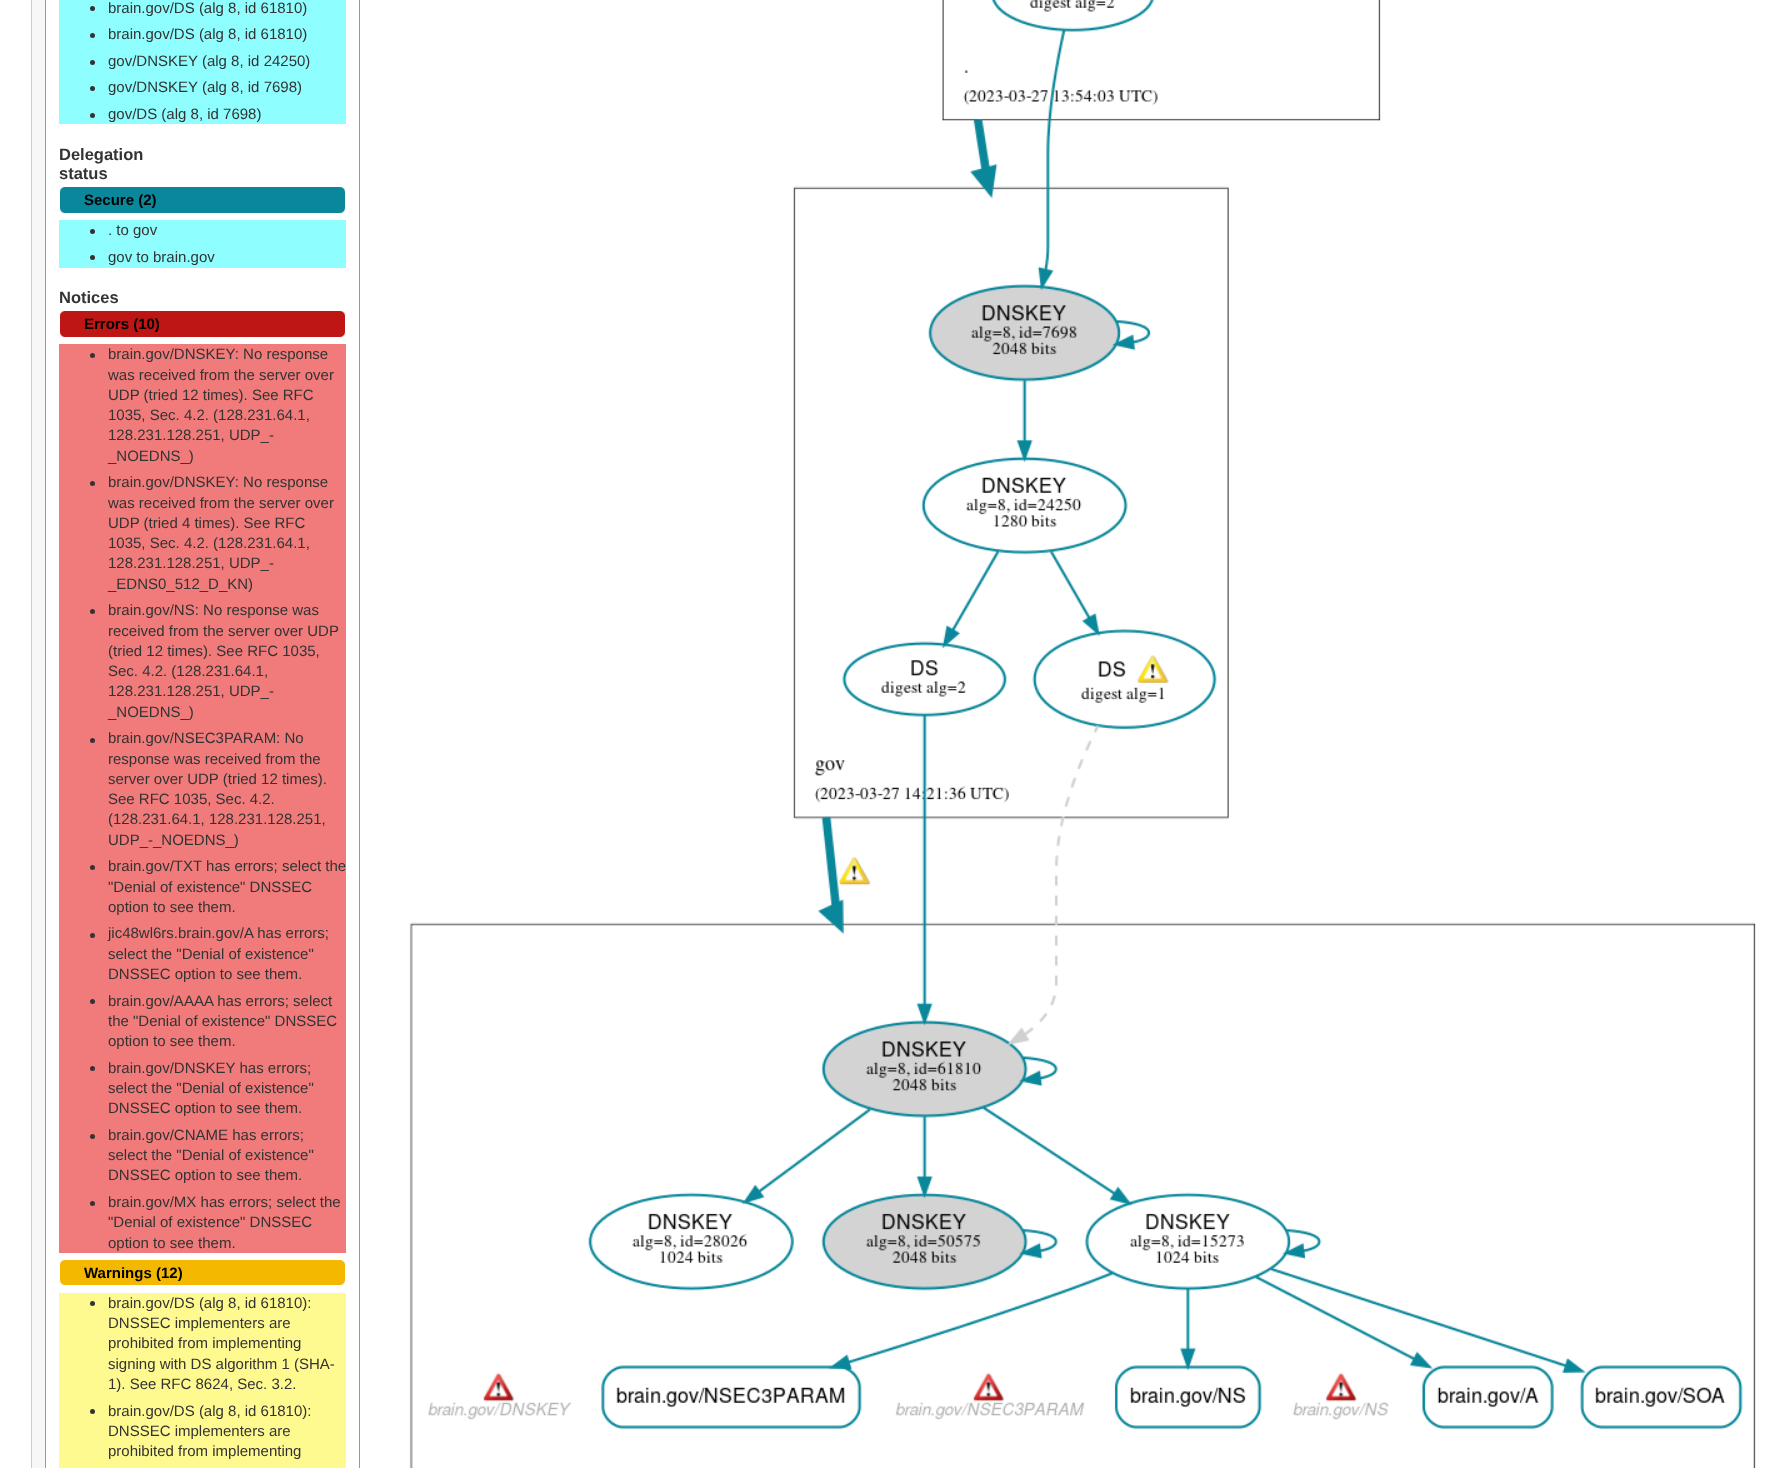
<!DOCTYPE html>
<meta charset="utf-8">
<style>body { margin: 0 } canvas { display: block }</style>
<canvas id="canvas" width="1789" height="1468"></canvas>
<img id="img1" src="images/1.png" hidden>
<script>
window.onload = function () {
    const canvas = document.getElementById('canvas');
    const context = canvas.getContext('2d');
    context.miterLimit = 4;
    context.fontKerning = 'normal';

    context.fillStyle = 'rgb(255, 255, 255)';
    context.fillRect(0, 0, 1789, 1468);
    context.fillStyle = 'rgb(247, 247, 247)';
    context.fillRect(32, 0, 13, 1468);
    context.strokeStyle = 'rgb(204, 204, 204)';
    context.strokeRect(31.5, -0.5, 1614, 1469);
    context.strokeStyle = 'rgb(153, 153, 153)';
    context.strokeRect(45.5, -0.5, 1568, 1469);
    context.fillStyle = 'rgb(143, 254, 255)';
    context.fillRect(59, 0, 287, 124);
    context.fillStyle = 'rgb(51, 51, 51)';
    context.beginPath();
    context.arc(92.5, 8.5, 2.5, 0, 2 * Math.PI);
    context.fill();
    context.beginPath();
    context.arc(92.5, 35.5, 2.5, 0, 2 * Math.PI);
    context.fill();
    context.beginPath();
    context.arc(92.5, 62.5, 2.5, 0, 2 * Math.PI);
    context.fill();
    context.beginPath();
    context.arc(92.5, 88.5, 2.5, 0, 2 * Math.PI);
    context.fill();
    context.beginPath();
    context.arc(92.5, 115.5, 2.5, 0, 2 * Math.PI);
    context.fill();
    context.fillStyle = 'rgb(10, 135, 154)';
    context.beginPath();
    context.roundRect(59.5, 186.5, 286, 27, 5.5);
    context.fill();
    context.strokeStyle = 'rgb(255, 255, 255)';
    context.stroke();
    context.fillStyle = 'rgb(143, 254, 255)';
    context.fillRect(59, 220, 287, 48);
    context.fillStyle = 'rgb(51, 51, 51)';
    context.beginPath();
    context.arc(92.5, 231.5, 2.5, 0, 2 * Math.PI);
    context.fill();
    context.beginPath();
    context.arc(92.5, 257.5, 2.5, 0, 2 * Math.PI);
    context.fill();
    context.fillStyle = 'rgb(190, 21, 21)';
    context.beginPath();
    context.roundRect(59.5, 310.5, 286, 27, 5.5);
    context.fill();
    context.stroke();
    context.fillStyle = 'rgb(241, 123, 123)';
    context.fillRect(59, 344, 287, 909);
    context.fillStyle = 'rgb(51, 51, 51)';
    context.beginPath();
    context.arc(92.5, 355.5, 2.5, 0, 2 * Math.PI);
    context.fill();
    context.beginPath();
    context.arc(92.5, 483.5, 2.5, 0, 2 * Math.PI);
    context.fill();
    context.beginPath();
    context.arc(92.5, 611.5, 2.5, 0, 2 * Math.PI);
    context.fill();
    context.beginPath();
    context.arc(92.5, 740.5, 2.5, 0, 2 * Math.PI);
    context.fill();
    context.beginPath();
    context.arc(92.5, 867.5, 2.5, 0, 2 * Math.PI);
    context.fill();
    context.beginPath();
    context.arc(92.5, 935.5, 2.5, 0, 2 * Math.PI);
    context.fill();
    context.beginPath();
    context.arc(92.5, 1001.5, 2.5, 0, 2 * Math.PI);
    context.fill();
    context.beginPath();
    context.arc(92.5, 1068.5, 2.5, 0, 2 * Math.PI);
    context.fill();
    context.beginPath();
    context.arc(92.5, 1136.5, 2.5, 0, 2 * Math.PI);
    context.fill();
    context.beginPath();
    context.arc(92.5, 1203.5, 2.5, 0, 2 * Math.PI);
    context.fill();
    context.fillStyle = 'rgb(244, 184, 0)';
    context.beginPath();
    context.roundRect(59.5, 1259.5, 286, 26, 5.5);
    context.fill();
    context.stroke();
    context.fillStyle = 'rgb(255, 250, 143)';
    context.fillRect(59, 1293, 287, 175);
    context.fillStyle = 'rgb(51, 51, 51)';
    context.beginPath();
    context.arc(92.5, 1303.5, 2.5, 0, 2 * Math.PI);
    context.fill();
    context.beginPath();
    context.arc(92.5, 1411.5, 2.5, 0, 2 * Math.PI);
    context.fill();
    context.fillStyle = 'rgb(153, 153, 153)';
    context.fillRect(359, 0, 1, 1468);
    context.drawImage(document.getElementById('img1'), 409, 0, 1347, 1468);
    context.font = '15px Liberation Sans';
    context.fillStyle = 'rgb(51, 51, 51)';
    context.fillText('brain.gov/DS (alg 8, id 61810)', 108, 13);
    context.fillText('brain.gov/DS (alg 8, id 61810)', 108, 39);
    context.fillText('gov/DNSKEY (alg 8, id 24250)', 108, 66);
    context.fillText('gov/DNSKEY (alg 8, id 7698)', 108, 92);
    context.fillText('gov/DS (alg 8, id 7698)', 108, 119);
    context.font = 'bold 16.5px Liberation Sans';
    context.fillText('Delegation', 59, 160);
    context.fillText('status', 59, 179);
    context.font = 'bold 15px Liberation Sans';
    context.fillStyle = 'rgb(0, 0, 0)';
    context.fillText('Secure (2)', 84, 205);
    context.font = '15px Liberation Sans';
    context.fillStyle = 'rgb(51, 51, 51)';
    context.fillText('. to gov', 108, 235);
    context.fillText('gov to brain.gov', 108, 262);
    context.font = 'bold 16.5px Liberation Sans';
    context.fillText('Notices', 59, 303);
    context.font = 'bold 15px Liberation Sans';
    context.fillStyle = 'rgb(0, 0, 0)';
    context.fillText('Errors (10)', 84, 329);
    context.font = '15px Liberation Sans';
    context.fillStyle = 'rgb(51, 51, 51)';
    context.fillText('brain.gov/DNSKEY: No response', 108, 359);
    context.fillText('was received from the server over', 108, 380);
    context.fillText('UDP (tried 12 times). See RFC', 108, 400);
    context.fillText('1035, Sec. 4.2. (128.231.64.1,', 108, 420);
    context.fillText('128.231.128.251, UDP_-', 108, 440);
    context.fillText('_NOEDNS_)', 108, 461);
    context.fillText('brain.gov/DNSKEY: No response', 108, 487);
    context.fillText('was received from the server over', 108, 508);
    context.fillText('UDP (tried 4 times). See RFC', 108, 528);
    context.fillText('1035, Sec. 4.2. (128.231.64.1,', 108, 548);
    context.fillText('128.231.128.251, UDP_-', 108, 568);
    context.fillText('_EDNS0_512_D_KN)', 108, 589);
    context.fillText('brain.gov/NS: No response was', 108, 615);
    context.fillText('received from the server over UDP', 108, 636);
    context.fillText('(tried 12 times). See RFC 1035,', 108, 656);
    context.fillText('Sec. 4.2. (128.231.64.1,', 108, 676);
    context.fillText('128.231.128.251, UDP_-', 108, 696);
    context.fillText('_NOEDNS_)', 108, 717);
    context.fillText('brain.gov/NSEC3PARAM: No', 108, 743);
    context.fillText('response was received from the', 108, 764);
    context.fillText('server over UDP (tried 12 times).', 108, 784);
    context.fillText('See RFC 1035, Sec. 4.2.', 108, 804);
    context.fillText('(128.231.64.1, 128.231.128.251,', 108, 824);
    context.fillText('UDP_-_NOEDNS_)', 108, 845);
    context.fillText('brain.gov/TXT has errors; select the', 108, 871);
    context.fillText('"Denial of existence" DNSSEC', 108, 892);
    context.fillText('option to see them.', 108, 912);
    context.fillText('jic48wl6rs.brain.gov/A has errors;', 108, 938);
    context.fillText('select the "Denial of existence"', 108, 959);
    context.fillText('DNSSEC option to see them.', 108, 979);
    context.fillText('brain.gov/AAAA has errors; select', 108, 1006);
    context.fillText('the "Denial of existence" DNSSEC', 108, 1026);
    context.fillText('option to see them.', 108, 1046);
    context.fillText('brain.gov/DNSKEY has errors;', 108, 1073);
    context.fillText('select the "Denial of existence"', 108, 1093);
    context.fillText('DNSSEC option to see them.', 108, 1113);
    context.fillText('brain.gov/CNAME has errors;', 108, 1140);
    context.fillText('select the "Denial of existence"', 108, 1160);
    context.fillText('DNSSEC option to see them.', 108, 1180);
    context.fillText('brain.gov/MX has errors; select the', 108, 1207);
    context.fillText('"Denial of existence" DNSSEC', 108, 1227);
    context.fillText('option to see them.', 108, 1248);
    context.font = 'bold 15px Liberation Sans';
    context.fillStyle = 'rgb(0, 0, 0)';
    context.fillText('Warnings (12)', 84, 1278);
    context.font = '15px Liberation Sans';
    context.fillStyle = 'rgb(51, 51, 51)';
    context.fillText('brain.gov/DS (alg 8, id 61810):', 108, 1308);
    context.fillText('DNSSEC implementers are', 108, 1328);
    context.fillText('prohibited from implementing', 108, 1348);
    context.fillText('signing with DS algorithm 1 (SHA-', 108, 1369);
    context.fillText('1). See RFC 8624, Sec. 3.2.', 108, 1389);
    context.fillText('brain.gov/DS (alg 8, id 61810):', 108, 1416);
    context.fillText('DNSSEC implementers are', 108, 1436);
    context.fillText('prohibited from implementing', 108, 1456);
};
</script>
